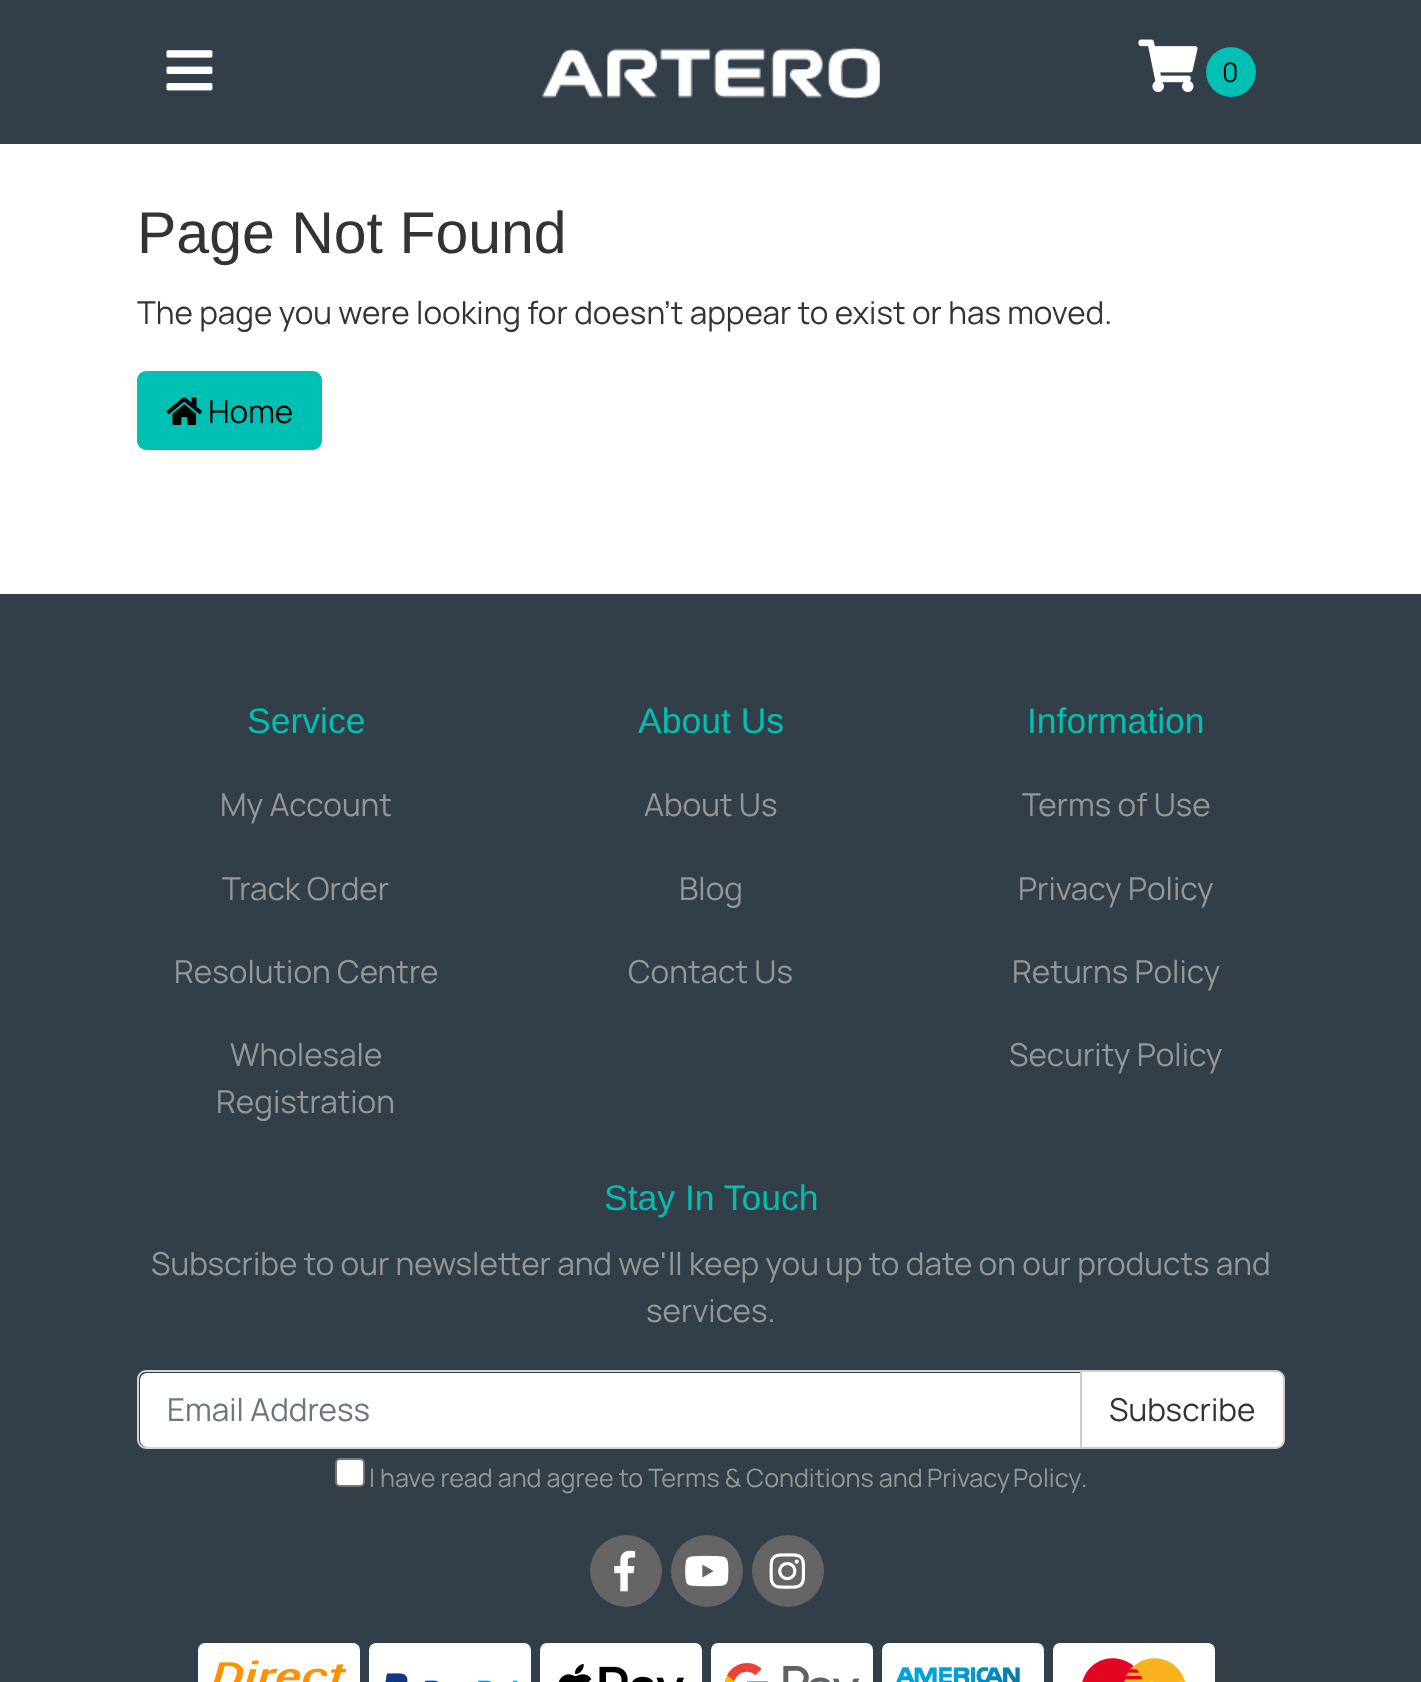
<!DOCTYPE html>
<meta charset="utf-8">
<style>body { margin: 0 } canvas { display: block }</style>
<canvas id="canvas" width="1421" height="1682"></canvas>
<img id="img1" src="images/1.png" hidden>
<img id="img2" src="images/2.png" hidden>
<img id="img3" src="images/3.png" hidden>
<img id="img4" src="images/4.png" hidden>
<img id="img5" src="images/5.png" hidden>
<img id="img6" src="images/6.png" hidden>
<img id="img7" src="images/7.png" hidden>
<img id="img8" src="images/8.png" hidden>
<img id="img9" src="images/9.png" hidden>
<img id="img10" src="images/10.png" hidden>
<img id="img11" src="images/11.png" hidden>
<img id="img12" src="images/12.png" hidden>
<img id="img13" src="images/13.png" hidden>
<script>
window.onload = function () {
    const canvas = document.getElementById('canvas');
    const context = canvas.getContext('2d');
    context.miterLimit = 4;
    context.fontKerning = 'normal';

    context.fillStyle = 'rgb(255, 255, 255)';
    context.fillRect(0, 0, 1421, 1682);
    context.fillStyle = 'rgb(51, 63, 72)';
    context.fillRect(0, 0, 1421, 144);
    context.drawImage(document.getElementById('img1'), 166, 50, 47, 41);
    context.drawImage(document.getElementById('img2'), 542, 47, 338, 52);
    context.drawImage(document.getElementById('img3'), 1138, 39, 60, 54);
    context.fillStyle = 'rgb(0, 191, 179)';
    context.beginPath();
    context.arc(1231, 72, 25, 0, 2 * Math.PI);
    context.fill();
    context.beginPath();
    context.roundRect(138, 372, 183, 77, 8);
    context.fill();
    context.strokeStyle = 'rgb(0, 191, 179)';
    context.lineWidth = 2;
    context.stroke();
    context.drawImage(document.getElementById('img4'), 166, 397, 36, 28);
    context.fillStyle = 'rgb(51, 63, 72)';
    context.fillRect(0, 594, 1421, 1088);
    context.fillStyle = 'rgb(255, 255, 255)';
    context.beginPath();
    context.roundRect(140, 1373, 940, 74, [7, 0, 0, 7]);
    context.fill();
    context.beginPath();
    context.roundRect(138, 1371, 943, 77, [8, 0, 0, 8]);
    context.strokeStyle = 'rgb(206, 212, 218)';
    context.stroke();
    context.beginPath();
    context.roundRect(1081, 1371, 203, 77, [0, 8, 8, 0]);
    context.fill();
    context.strokeStyle = 'rgb(204, 204, 204)';
    context.stroke();
    context.beginPath();
    context.roundRect(336, 1459, 28, 27, 4);
    context.fill();
    context.strokeStyle = 'rgb(118, 118, 118)';
    context.stroke();
    context.fillStyle = 'rgb(101, 101, 101)';
    context.beginPath();
    context.arc(626, 1571, 36, 0, 2 * Math.PI);
    context.fill();
    context.drawImage(document.getElementById('img5'), 614, 1550, 22, 42);
    context.beginPath();
    context.arc(707, 1571, 36, 0, 2 * Math.PI);
    context.fill();
    context.drawImage(document.getElementById('img6'), 685, 1555, 44, 32);
    context.beginPath();
    context.arc(788, 1571, 36, 0, 2 * Math.PI);
    context.fill();
    context.drawImage(document.getElementById('img7'), 769, 1553, 36, 36);
    context.fillStyle = 'rgb(255, 255, 255)';
    context.beginPath();
    context.roundRect(198, 1643, 162, 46, 7);
    context.fill();
    context.drawImage(document.getElementById('img8'), 214, 1660, 133, 22);
    context.beginPath();
    context.roundRect(369, 1643, 162, 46, 7);
    context.fill();
    context.drawImage(document.getElementById('img9'), 385, 1673, 133, 9);
    context.beginPath();
    context.roundRect(540, 1643, 162, 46, 7);
    context.fill();
    context.drawImage(document.getElementById('img10'), 558, 1664, 126, 18);
    context.beginPath();
    context.roundRect(711, 1643, 162, 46, 7);
    context.fill();
    context.drawImage(document.getElementById('img11'), 725, 1663, 135, 19);
    context.beginPath();
    context.roundRect(882, 1643, 162, 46, 7);
    context.fill();
    context.drawImage(document.getElementById('img12'), 896, 1667, 124, 15);
    context.beginPath();
    context.roundRect(1053, 1643, 162, 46, 7);
    context.fill();
    context.drawImage(document.getElementById('img13'), 1082, 1658, 103, 24);
    context.font = '27px Manrope';
    context.fillStyle = 'rgb(0, 0, 0)';
    context.fillText('0', 1222, 82);
    context.font = '59px Liberation Sans';
    context.fillStyle = 'rgb(51, 51, 51)';
    context.fillText('Page Not Found', 137, 253);
    context.font = '31.5px Manrope';
    context.fillText('The page you were looking for doesn\'t appear to exist or has moved.', 137, 324);
    context.fillStyle = 'rgb(0, 0, 0)';
    context.fillText('Home', 208, 423);
    context.font = '35.5px Liberation Sans';
    context.fillStyle = 'rgb(0, 191, 179)';
    context.fillText('Service', 247, 733);
    context.font = '31.5px Manrope';
    context.fillStyle = 'rgb(151, 151, 151)';
    context.fillText('My Account', 220, 816);
    context.fillText('Track Order', 222, 900);
    context.fillText('Resolution Centre', 174, 983);
    context.fillText('Wholesale', 230, 1066);
    context.fillText('Registration', 216, 1113);
    context.font = '35.5px Liberation Sans';
    context.fillStyle = 'rgb(0, 191, 179)';
    context.fillText('About Us', 638, 733);
    context.font = '31.5px Manrope';
    context.fillStyle = 'rgb(151, 151, 151)';
    context.fillText('About Us', 644, 816);
    context.fillText('Blog', 679, 900);
    context.fillText('Contact Us', 628, 983);
    context.font = '35.5px Liberation Sans';
    context.fillStyle = 'rgb(0, 191, 179)';
    context.fillText('Information', 1027, 733);
    context.font = '31.5px Manrope';
    context.fillStyle = 'rgb(151, 151, 151)';
    context.fillText('Terms of Use', 1022, 816);
    context.fillText('Privacy Policy', 1018, 900);
    context.fillText('Returns Policy', 1012, 983);
    context.fillText('Security Policy', 1009, 1066);
    context.font = '35.5px Liberation Sans';
    context.fillStyle = 'rgb(0, 191, 179)';
    context.fillText('Stay In Touch', 604, 1210);
    context.font = '31.5px Manrope';
    context.fillStyle = 'rgb(151, 151, 151)';
    context.fillText('Subscribe to our newsletter and we\'ll keep you up to date on our products and', 151, 1275);
    context.fillText('services.', 646, 1322);
    context.fillStyle = 'rgb(108, 117, 125)';
    context.fillText('Email Address', 167, 1421);
    context.fillStyle = 'rgb(51, 51, 51)';
    context.fillText('Subscribe', 1109, 1421);
    context.font = '25.2px Manrope';
    context.fillStyle = 'rgb(151, 151, 151)';
    context.fillText('I have read and agree to Terms & Conditions and', 369, 1487);
    context.wordSpacing = '-2px';
    context.fillText('Privacy Policy', 927, 1487);
    context.wordSpacing = '0px';
    context.fillText('.', 1081, 1487);
};
</script>
